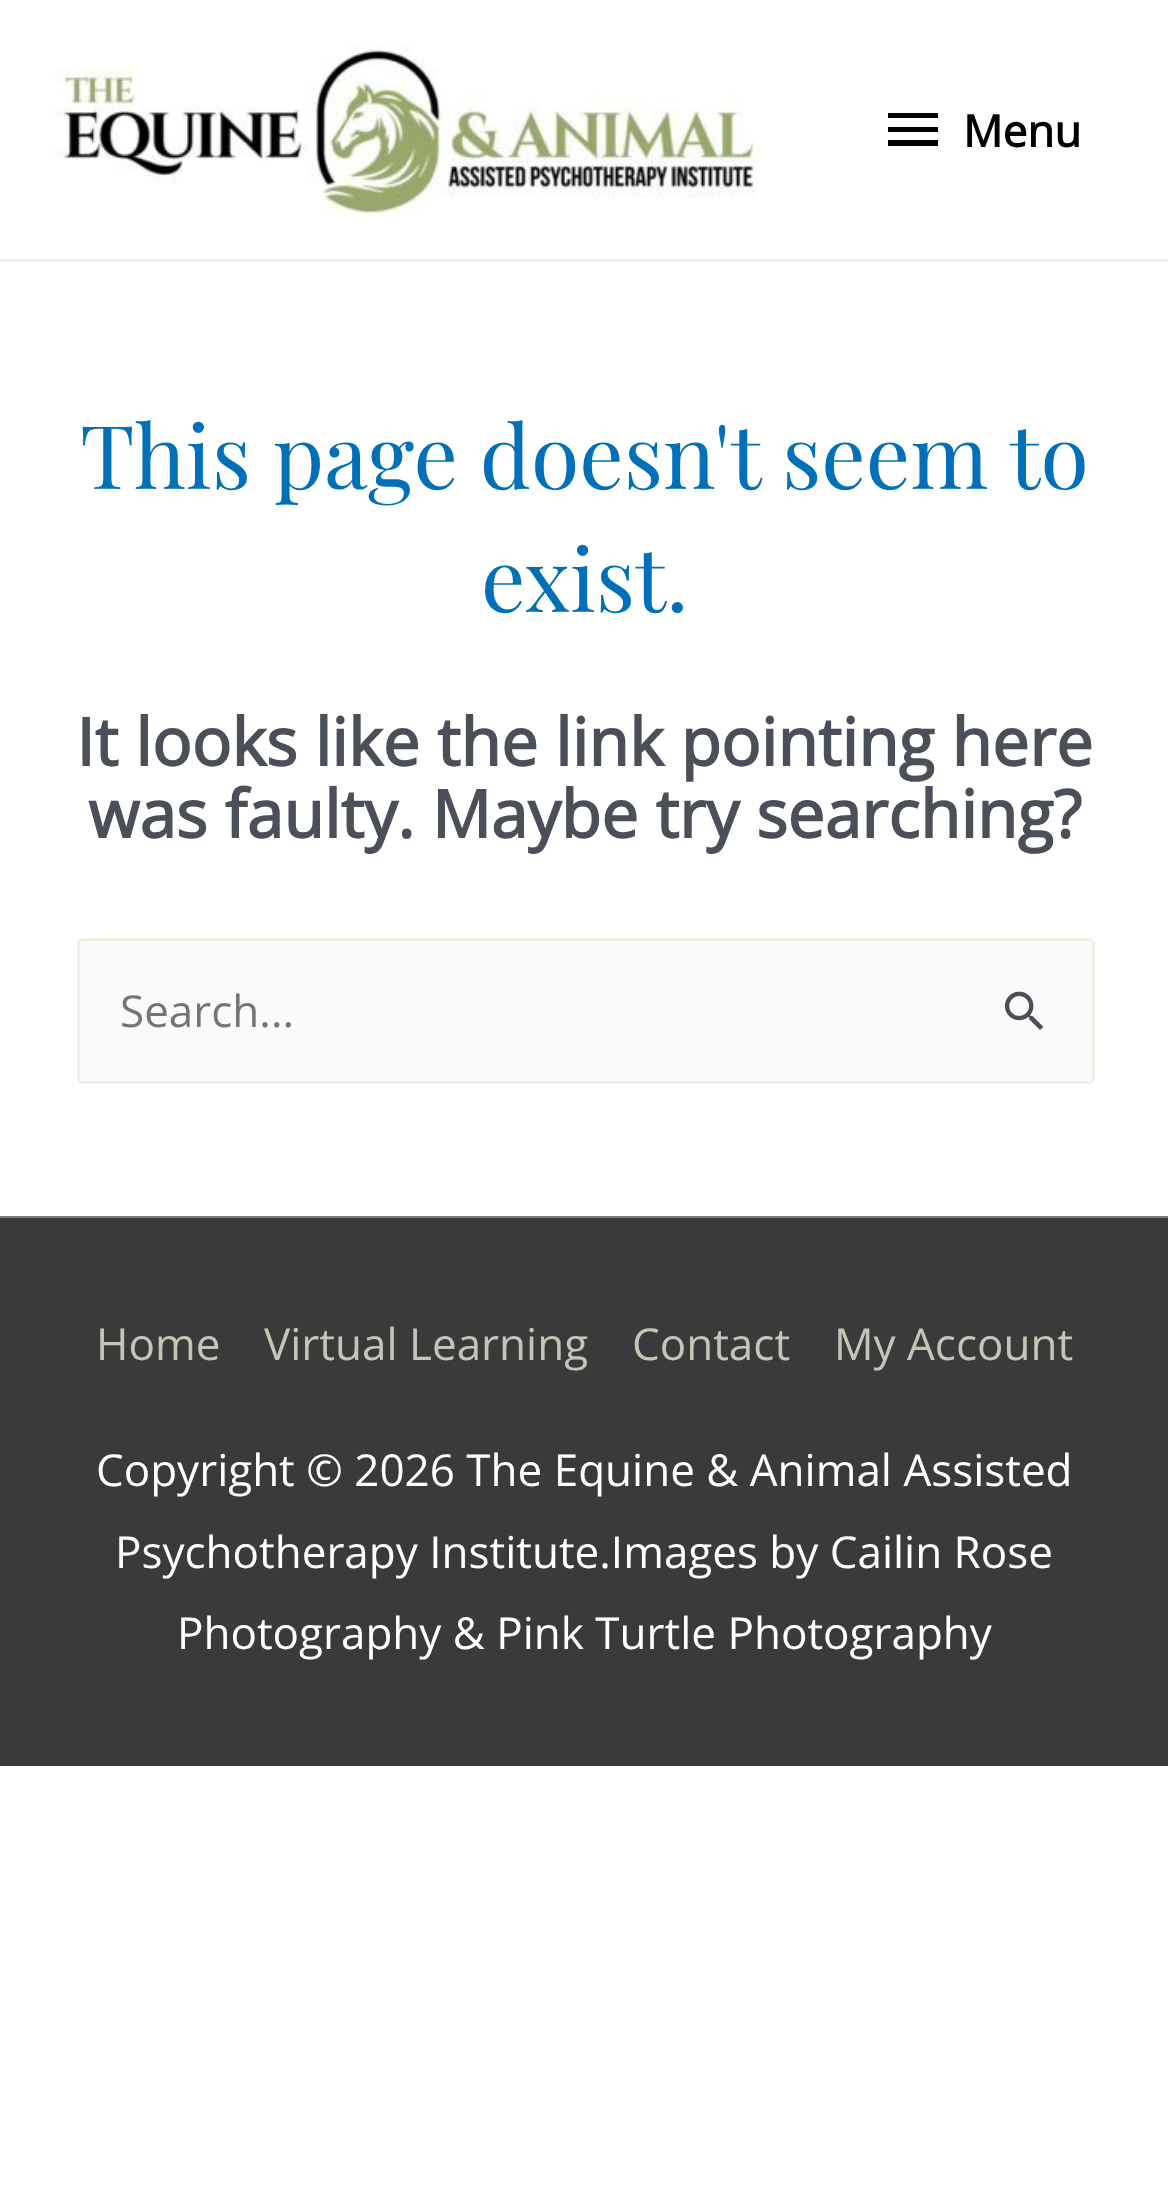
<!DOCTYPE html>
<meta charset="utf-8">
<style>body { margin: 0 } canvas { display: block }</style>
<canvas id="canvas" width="1168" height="2208"></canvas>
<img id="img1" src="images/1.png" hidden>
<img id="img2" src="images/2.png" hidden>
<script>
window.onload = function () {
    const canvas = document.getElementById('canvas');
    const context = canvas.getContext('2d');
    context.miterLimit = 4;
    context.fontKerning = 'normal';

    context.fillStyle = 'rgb(255, 255, 255)';
    context.fillRect(0, 0, 1168, 2208);
    context.fillStyle = 'rgb(243, 241, 229)';
    context.fillRect(0, 259, 1168, 3);
    context.drawImage(document.getElementById('img1'), 55, 45, 704, 170);
    context.fillStyle = 'rgb(0, 0, 0)';
    context.beginPath();
    context.moveTo(888, 113);
    context.lineTo(938, 113);
    context.lineTo(938, 118);
    context.lineTo(888, 118);
    context.closePath();
    context.moveTo(888, 132);
    context.lineTo(888, 127);
    context.lineTo(938, 127);
    context.lineTo(938, 132);
    context.closePath();
    context.moveTo(888, 146);
    context.lineTo(888, 140);
    context.lineTo(938, 140);
    context.lineTo(938, 146);
    context.closePath();
    context.fill();
    context.fillStyle = 'rgb(250, 250, 250)';
    context.beginPath();
    context.roundRect(78.5, 939.5, 1015, 143, 4.5);
    context.fill();
    context.strokeStyle = 'rgb(242, 240, 228)';
    context.lineWidth = 3;
    context.stroke();
    context.drawImage(document.getElementById('img2'), 1004, 991, 40, 39);
    context.fillStyle = 'rgb(122, 122, 122)';
    context.fillRect(0, 1216, 1168, 2);
    context.fillStyle = 'rgb(58, 58, 58)';
    context.fillRect(0, 1218, 1168, 548);
    context.font = 'bold 44px Open Sans';
    context.fillStyle = 'rgb(0, 0, 0)';
    context.fillText('Menu', 963, 147);
    context.font = '88px Playfair Display';
    context.fillStyle = 'rgb(1, 112, 185)';
    context.fillText('This page doesn\'t seem to', 80, 489);
    context.fillText('exist.', 481, 612);
    context.font = 'bold 66px Open Sans';
    context.fillStyle = 'rgb(75, 79, 88)';
    context.fillText('It looks like the link pointing here', 76, 766);
    context.fillText('was faulty. Maybe try searching?', 88, 838);
    context.font = '44px Open Sans';
    context.fillStyle = 'rgb(117, 117, 117)';
    context.fillText('Search...', 120, 1027);
    context.fillStyle = 'rgb(198, 196, 184)';
    context.fillText('Home', 96, 1360);
    context.fillText('Virtual Learning', 264, 1360);
    context.fillText('Contact', 632, 1360);
    context.fillText('My Account', 834, 1360);
    context.fillStyle = 'rgb(255, 255, 255)';
    context.fillText('Copyright © 2026 The Equine & Animal Assisted', 96, 1486);
    context.fillText('Psychotherapy Institute.Images by Cailin Rose', 115, 1568);
    context.fillText('Photography & Pink Turtle Photography', 177, 1649);
};
</script>
